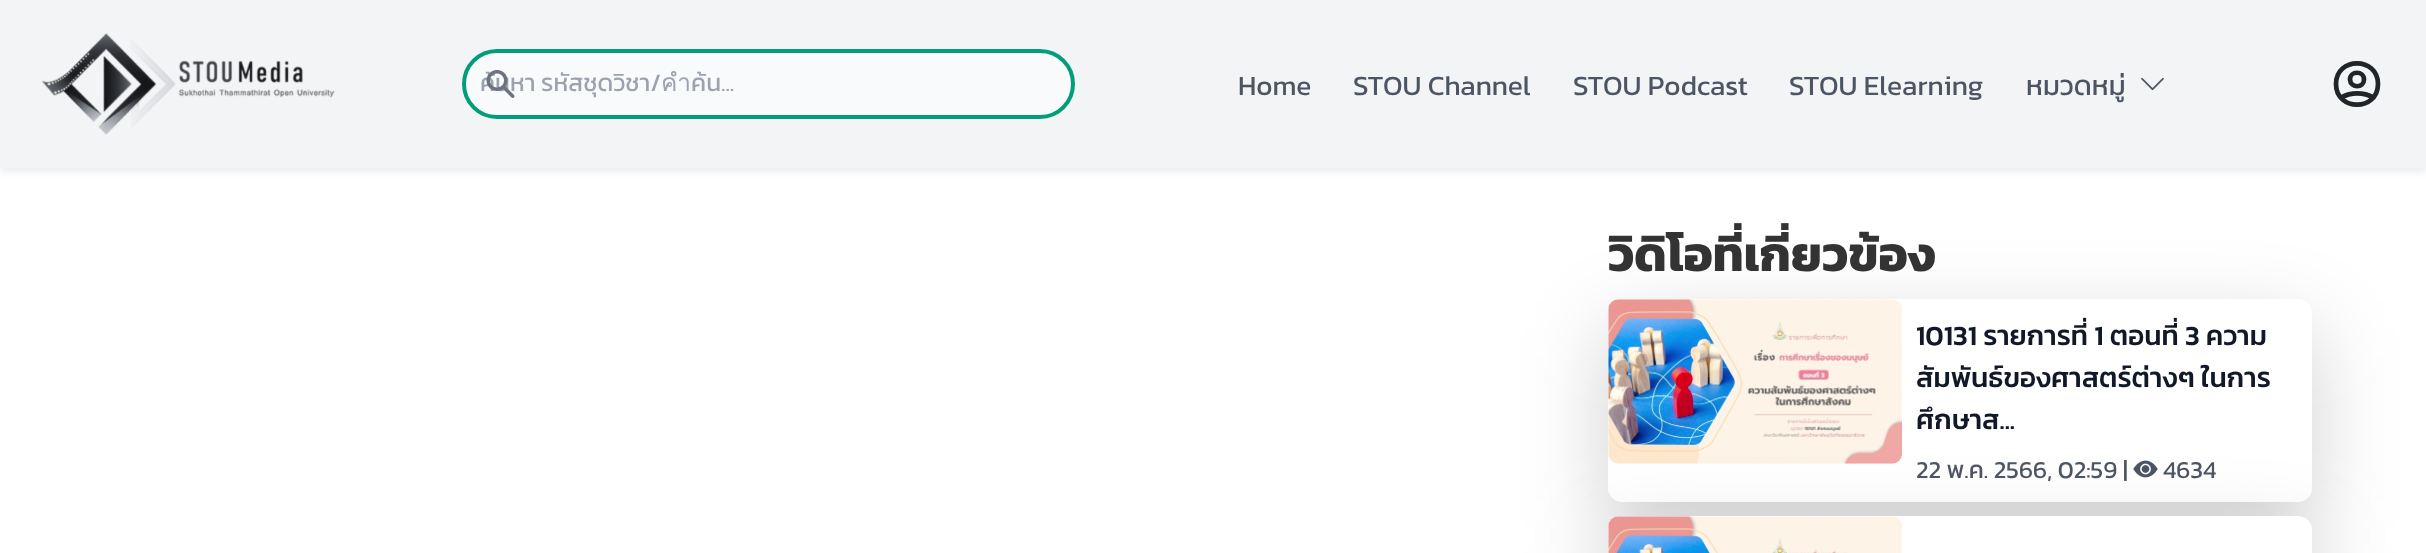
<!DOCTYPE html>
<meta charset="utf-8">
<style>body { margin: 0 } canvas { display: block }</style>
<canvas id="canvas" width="2426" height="553"></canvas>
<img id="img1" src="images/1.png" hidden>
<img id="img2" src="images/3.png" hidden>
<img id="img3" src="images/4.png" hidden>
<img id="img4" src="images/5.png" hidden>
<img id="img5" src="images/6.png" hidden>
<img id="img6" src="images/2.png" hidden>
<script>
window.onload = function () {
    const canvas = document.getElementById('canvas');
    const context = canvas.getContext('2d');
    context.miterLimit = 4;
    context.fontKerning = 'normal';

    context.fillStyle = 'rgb(255, 255, 255)';
    context.fillRect(0, 0, 2426, 553);
    context.fillStyle = 'rgba(0, 0, 0, 0.07)';
    context.filter = 'blur(3.5px)';
    context.beginPath();
    context.rect(0, 4, 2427, 168);
    context.fill();
    context.filter = 'none';
    context.fillStyle = 'rgb(243, 244, 246)';
    context.fillRect(0, 0, 2426, 168);
    context.drawImage(document.getElementById('img1'), 42, 33, 293, 102);
    context.fillStyle = 'rgb(249, 250, 251)';
    context.beginPath();
    context.roundRect(464, 51, 609, 66, 33);
    context.fill();
    context.strokeStyle = 'rgb(1, 158, 121)';
    context.lineWidth = 4;
    context.stroke();
    context.drawImage(document.getElementById('img2'), 2141, 77, 23, 14);
    context.beginPath();
    context.moveTo(2341, 97.5);
    context.bezierCurveTo(2351, 92, 2363.5, 92, 2373.5, 97.5);
    context.moveTo(2364, 79.5);
    context.bezierCurveTo(2364, 88.5, 2350.5, 88.5, 2350, 79.5);
    context.bezierCurveTo(2350, 70.5, 2364, 70.5, 2364, 79.5);
    context.closePath();
    context.moveTo(2378, 84);
    context.bezierCurveTo(2378, 111.5, 2336, 111.5, 2336, 84);
    context.bezierCurveTo(2336, 56.5, 2378, 56.5, 2378, 84);
    context.closePath();
    context.strokeStyle = 'rgb(33, 37, 41)';
    context.lineWidth = 4.7;
    context.lineCap = 'round';
    context.lineJoin = 'round';
    context.stroke();
    context.fillStyle = 'rgba(0, 0, 0, 0.18)';
    context.filter = 'blur(42px)';
    context.beginPath();
    context.roundRect(1608, 327, 704, 203, 14);
    context.fill();
    context.filter = 'none';
    context.fillStyle = 'rgb(255, 255, 255)';
    context.beginPath();
    context.roundRect(1608, 299, 704, 203, 14);
    context.fill();
    context.drawImage(document.getElementById('img3'), 1608, 299, 295, 165);
    context.drawImage(document.getElementById('img4'), 2133, 460, 25, 18);
    context.fillStyle = 'rgba(0, 0, 0, 0.18)';
    context.filter = 'blur(42px)';
    context.beginPath();
    context.roundRect(1608, 544, 704, 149, 14);
    context.fill();
    context.filter = 'none';
    context.fillStyle = 'rgb(255, 255, 255)';
    context.beginPath();
    context.roundRect(1608, 516, 704, 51, 14);
    context.fill();
    context.drawImage(document.getElementById('img5'), 1608, 516, 294, 37);
    context.save();
    context.beginPath();
    context.rect(480, 65, 553, 37);
    context.clip();
    context.font = '24.5px Kanit';
    context.fillStyle = 'rgb(156, 163, 175)';
    context.fillText('ค้นหา รหัสชุดวิชา/คำค้น...', 480, 91);
    context.restore();
    context.drawImage(document.getElementById('img6'), 486, 70, 29, 28);
    context.font = '28px Kanit';
    context.fillStyle = 'rgb(75, 85, 99)';
    context.fillText('Home', 1238, 95);
    context.fillText('STOU Channel', 1353, 95);
    context.fillText('STOU Podcast', 1573, 95);
    context.fillText('STOU Elearning', 1789, 95);
    context.fillText('หมวดหมู่', 2026, 95);
    context.font = 'bold 49px Kanit';
    context.fillStyle = 'rgb(51, 51, 51)';
    context.fillText('วิดิโอที่เกี่ยวข้อง', 1608, 271);
    context.font = '500 28px Kanit';
    context.fillStyle = 'rgb(17, 24, 39)';
    context.fillText('10131 รายการที่ 1 ตอนที่ 3 ความ', 1916, 345);
    context.fillText('สัมพันธ์ของศาสตร์ต่างๆ ในการ', 1916, 387);
    context.fillText('ศึกษาส...', 1916, 429);
    context.font = '24.5px Kanit';
    context.fillStyle = 'rgb(75, 85, 99)';
    context.fillText('22 พ.ค. 2566, 02:59 |', 1916, 478);
    context.fillText('4634', 2163, 478);
};
</script>
